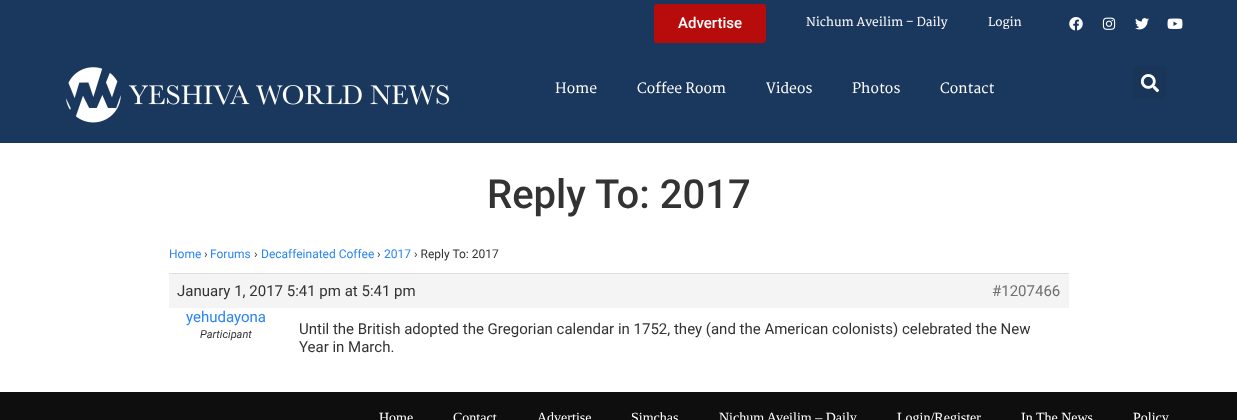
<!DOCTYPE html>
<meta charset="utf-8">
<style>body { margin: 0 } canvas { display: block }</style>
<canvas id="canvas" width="1237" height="420"></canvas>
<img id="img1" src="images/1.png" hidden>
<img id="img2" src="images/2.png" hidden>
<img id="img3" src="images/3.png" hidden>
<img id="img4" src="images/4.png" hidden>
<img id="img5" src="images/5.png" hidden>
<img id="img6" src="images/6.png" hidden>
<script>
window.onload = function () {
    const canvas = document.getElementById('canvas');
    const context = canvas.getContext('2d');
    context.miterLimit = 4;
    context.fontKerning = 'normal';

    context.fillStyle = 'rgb(255, 255, 255)';
    context.fillRect(0, 0, 1237, 420);
    context.fillStyle = 'rgb(26, 56, 93)';
    context.fillRect(0, 0, 1237, 143);
    context.fillStyle = 'rgb(184, 11, 11)';
    context.beginPath();
    context.roundRect(654, 4, 112, 39, 3);
    context.fill();
    context.drawImage(document.getElementById('img1'), 1069, 17, 14, 14);
    context.drawImage(document.getElementById('img2'), 1102, 17, 14, 13);
    context.drawImage(document.getElementById('img3'), 1135, 18, 14, 12);
    context.drawImage(document.getElementById('img4'), 1167, 18, 16, 11);
    context.drawImage(document.getElementById('img5'), 65, 67, 385, 56);
    context.fillStyle = 'rgb(25, 53, 88)';
    context.beginPath();
    context.roundRect(1133, 66, 33, 33, 3);
    context.fill();
    context.drawImage(document.getElementById('img6'), 1140, 74, 19, 19);
    context.fillStyle = 'rgb(244, 244, 244)';
    context.fillRect(169, 274, 900, 34);
    context.fillStyle = 'rgb(221, 221, 221)';
    context.fillRect(169, 273, 900, 1);
    context.fillStyle = 'rgb(14, 14, 14)';
    context.fillRect(0, 392, 1237, 28);
    context.font = '500 15px Roboto';
    context.fillStyle = 'rgb(255, 255, 255)';
    context.fillText('Advertise', 678, 28);
    context.font = '600 12px Martel';
    context.fillText('Nichum Aveilim – Daily', 806, 26);
    context.fillText('Login', 988, 26);
    context.font = '600 14px Martel';
    context.fillText('Home', 555, 93);
    context.fillText('Coffee Room', 637, 93);
    context.fillText('Videos', 766, 93);
    context.fillText('Photos', 852, 93);
    context.fillText('Contact', 940, 93);
    context.font = '500 40px Roboto';
    context.fillStyle = 'rgb(51, 51, 51)';
    context.fillText('Reply To: 2017', 487, 208);
    context.font = '12px Roboto';
    context.fillStyle = 'rgb(43, 133, 244)';
    context.fillText('Home', 169, 258);
    context.fillStyle = 'rgb(51, 51, 51)';
    context.fillText('›', 204, 258);
    context.fillStyle = 'rgb(43, 133, 244)';
    context.fillText('Forums', 210, 258);
    context.fillStyle = 'rgb(51, 51, 51)';
    context.fillText('›', 254, 258);
    context.fillStyle = 'rgb(43, 133, 244)';
    context.fillText('Decaffeinated Coffee', 261, 258);
    context.fillStyle = 'rgb(51, 51, 51)';
    context.fillText('›', 377, 258);
    context.fillStyle = 'rgb(43, 133, 244)';
    context.fillText('2017', 384, 258);
    context.fillStyle = 'rgb(51, 51, 51)';
    context.fillText('› Reply To: 2017', 414, 258);
    context.font = '15px Roboto';
    context.fillText('January 1, 2017 5:41 pm at 5:41 pm', 177, 296);
    context.fillStyle = 'rgb(112, 112, 112)';
    context.fillText('#1207466', 992, 296);
    context.fillStyle = 'rgb(43, 133, 244)';
    context.fillText('yehudayona', 186, 322);
    context.font = 'italic 11px Roboto';
    context.fillStyle = 'rgb(51, 51, 51)';
    context.fillText('Participant', 200, 338);
    context.font = '15px Roboto';
    context.fillText('Until the British adopted the Gregorian calendar in 1752, they (and the American colonists) celebrated the New', 299, 334);
    context.fillText('Year in March.', 299, 352);
    context.font = '14px Liberation Serif';
    context.fillStyle = 'rgb(255, 255, 255)';
    context.fillText('Home', 379, 422);
    context.fillText('Contact', 453, 422);
    context.fillText('Advertise', 537, 422);
    context.fillText('Simchas', 631, 422);
    context.fillText('Nichum Aveilim – Daily', 719, 422);
    context.fillText('Login/Register', 897, 422);
    context.fillText('In The News', 1021, 422);
    context.fillText('Policy', 1133, 422);
};
</script>
